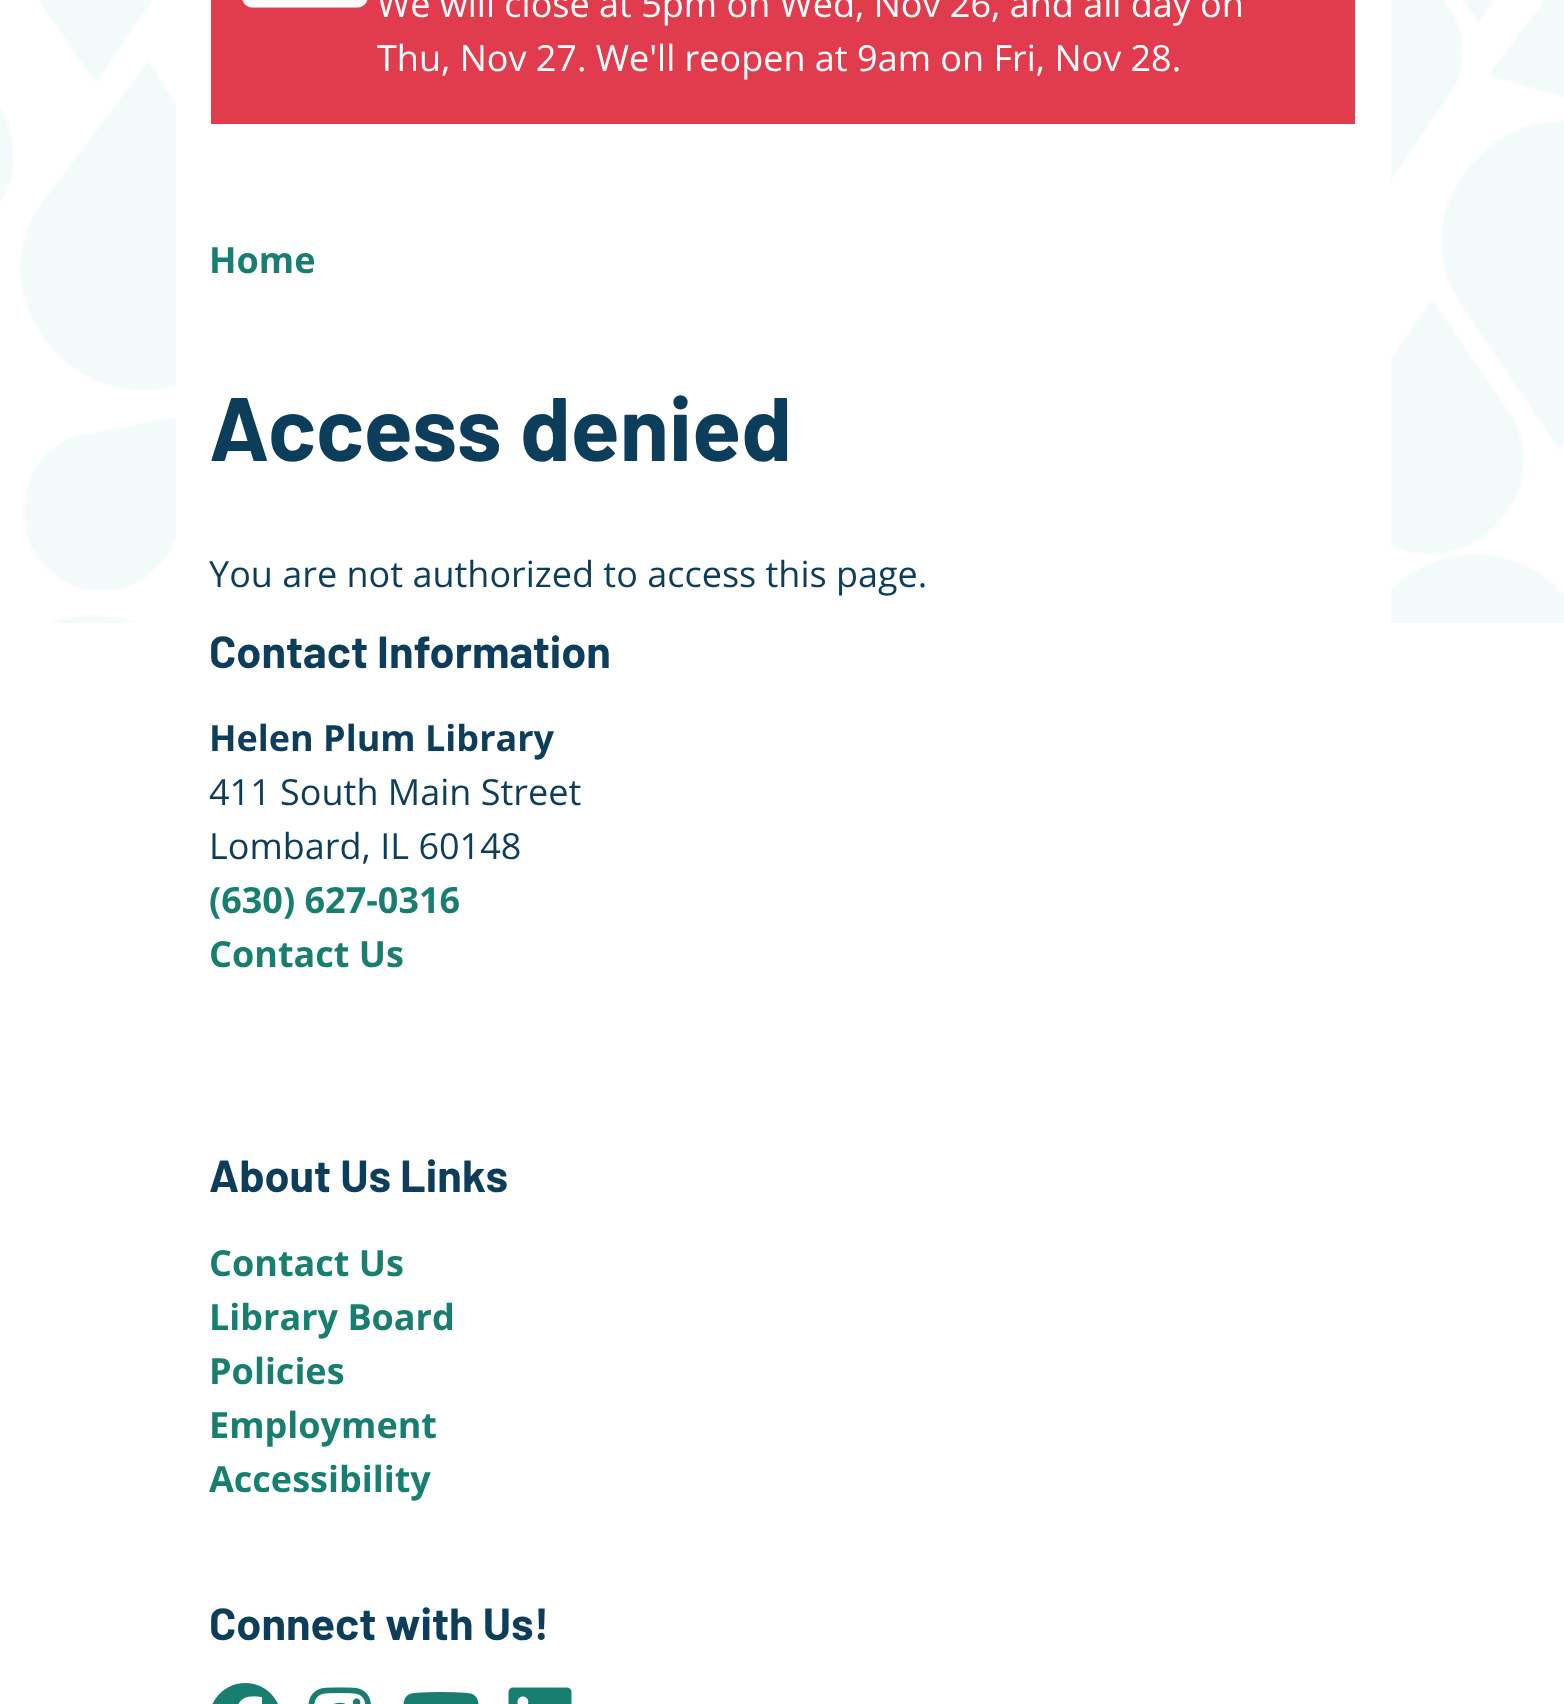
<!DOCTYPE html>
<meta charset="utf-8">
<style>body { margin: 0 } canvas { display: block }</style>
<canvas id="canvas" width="1564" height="1704"></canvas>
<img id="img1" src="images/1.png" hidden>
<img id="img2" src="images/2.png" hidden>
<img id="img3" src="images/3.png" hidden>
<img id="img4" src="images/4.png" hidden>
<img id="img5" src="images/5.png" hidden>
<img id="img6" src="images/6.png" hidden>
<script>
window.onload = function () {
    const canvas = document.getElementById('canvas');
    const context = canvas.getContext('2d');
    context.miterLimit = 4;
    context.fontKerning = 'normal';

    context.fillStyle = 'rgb(255, 255, 255)';
    context.fillRect(0, 0, 1564, 1704);
    context.drawImage(document.getElementById('img1'), 0, 0, 1564, 623);
    context.fillRect(176, 0, 1215, 623);
    context.fillStyle = 'rgb(225, 60, 77)';
    context.fillRect(211, 0, 1144, 124);
    context.drawImage(document.getElementById('img2'), 242, 0, 126, 8);
    context.drawImage(document.getElementById('img3'), 212, 1683, 66, 21);
    context.drawImage(document.getElementById('img4'), 308, 1687, 63, 17);
    context.drawImage(document.getElementById('img5'), 403, 1692, 76, 12);
    context.drawImage(document.getElementById('img6'), 508, 1687, 64, 17);
    context.font = '36px Open Sans';
    context.fillStyle = 'rgb(255, 255, 255)';
    context.fillText('We will close at 5pm on Wed, Nov 26, and all day on', 377, 17);
    context.fillText('Thu, Nov 27. We\'ll reopen at 9am on Fri, Nov 28.', 377, 71);
    context.font = 'bold 36px Open Sans';
    context.fillStyle = 'rgb(24, 126, 112)';
    context.fillText('Home', 209, 273);
    context.font = 'bold 90px Barlow';
    context.fillStyle = 'rgb(12, 61, 91)';
    context.fillText('Access denied', 209, 461);
    context.font = '36px Open Sans';
    context.fillText('You are not authorized to access this page.', 209, 587);
    context.font = 'bold 45px Barlow';
    context.fillText('Contact Information', 209, 668);
    context.font = 'bold 36px Open Sans';
    context.fillText('Helen Plum Library', 209, 751);
    context.font = '36px Open Sans';
    context.fillText('411 South Main Street', 209, 805);
    context.fillText('Lombard, IL 60148', 209, 859);
    context.font = 'bold 36px Open Sans';
    context.fillStyle = 'rgb(24, 126, 112)';
    context.fillText('(630) 627-0316', 209, 913);
    context.fillText('Contact Us', 209, 967);
    context.font = 'bold 45px Barlow';
    context.fillStyle = 'rgb(12, 61, 91)';
    context.fillText('About Us Links', 209, 1192);
    context.font = 'bold 36px Open Sans';
    context.fillStyle = 'rgb(24, 126, 112)';
    context.fillText('Contact Us', 209, 1276);
    context.fillText('Library Board', 209, 1330);
    context.fillText('Policies', 209, 1384);
    context.fillText('Employment', 209, 1438);
    context.fillText('Accessibility', 209, 1492);
    context.font = 'bold 45px Barlow';
    context.fillStyle = 'rgb(12, 61, 91)';
    context.fillText('Connect with Us!', 209, 1640);
};
</script>
